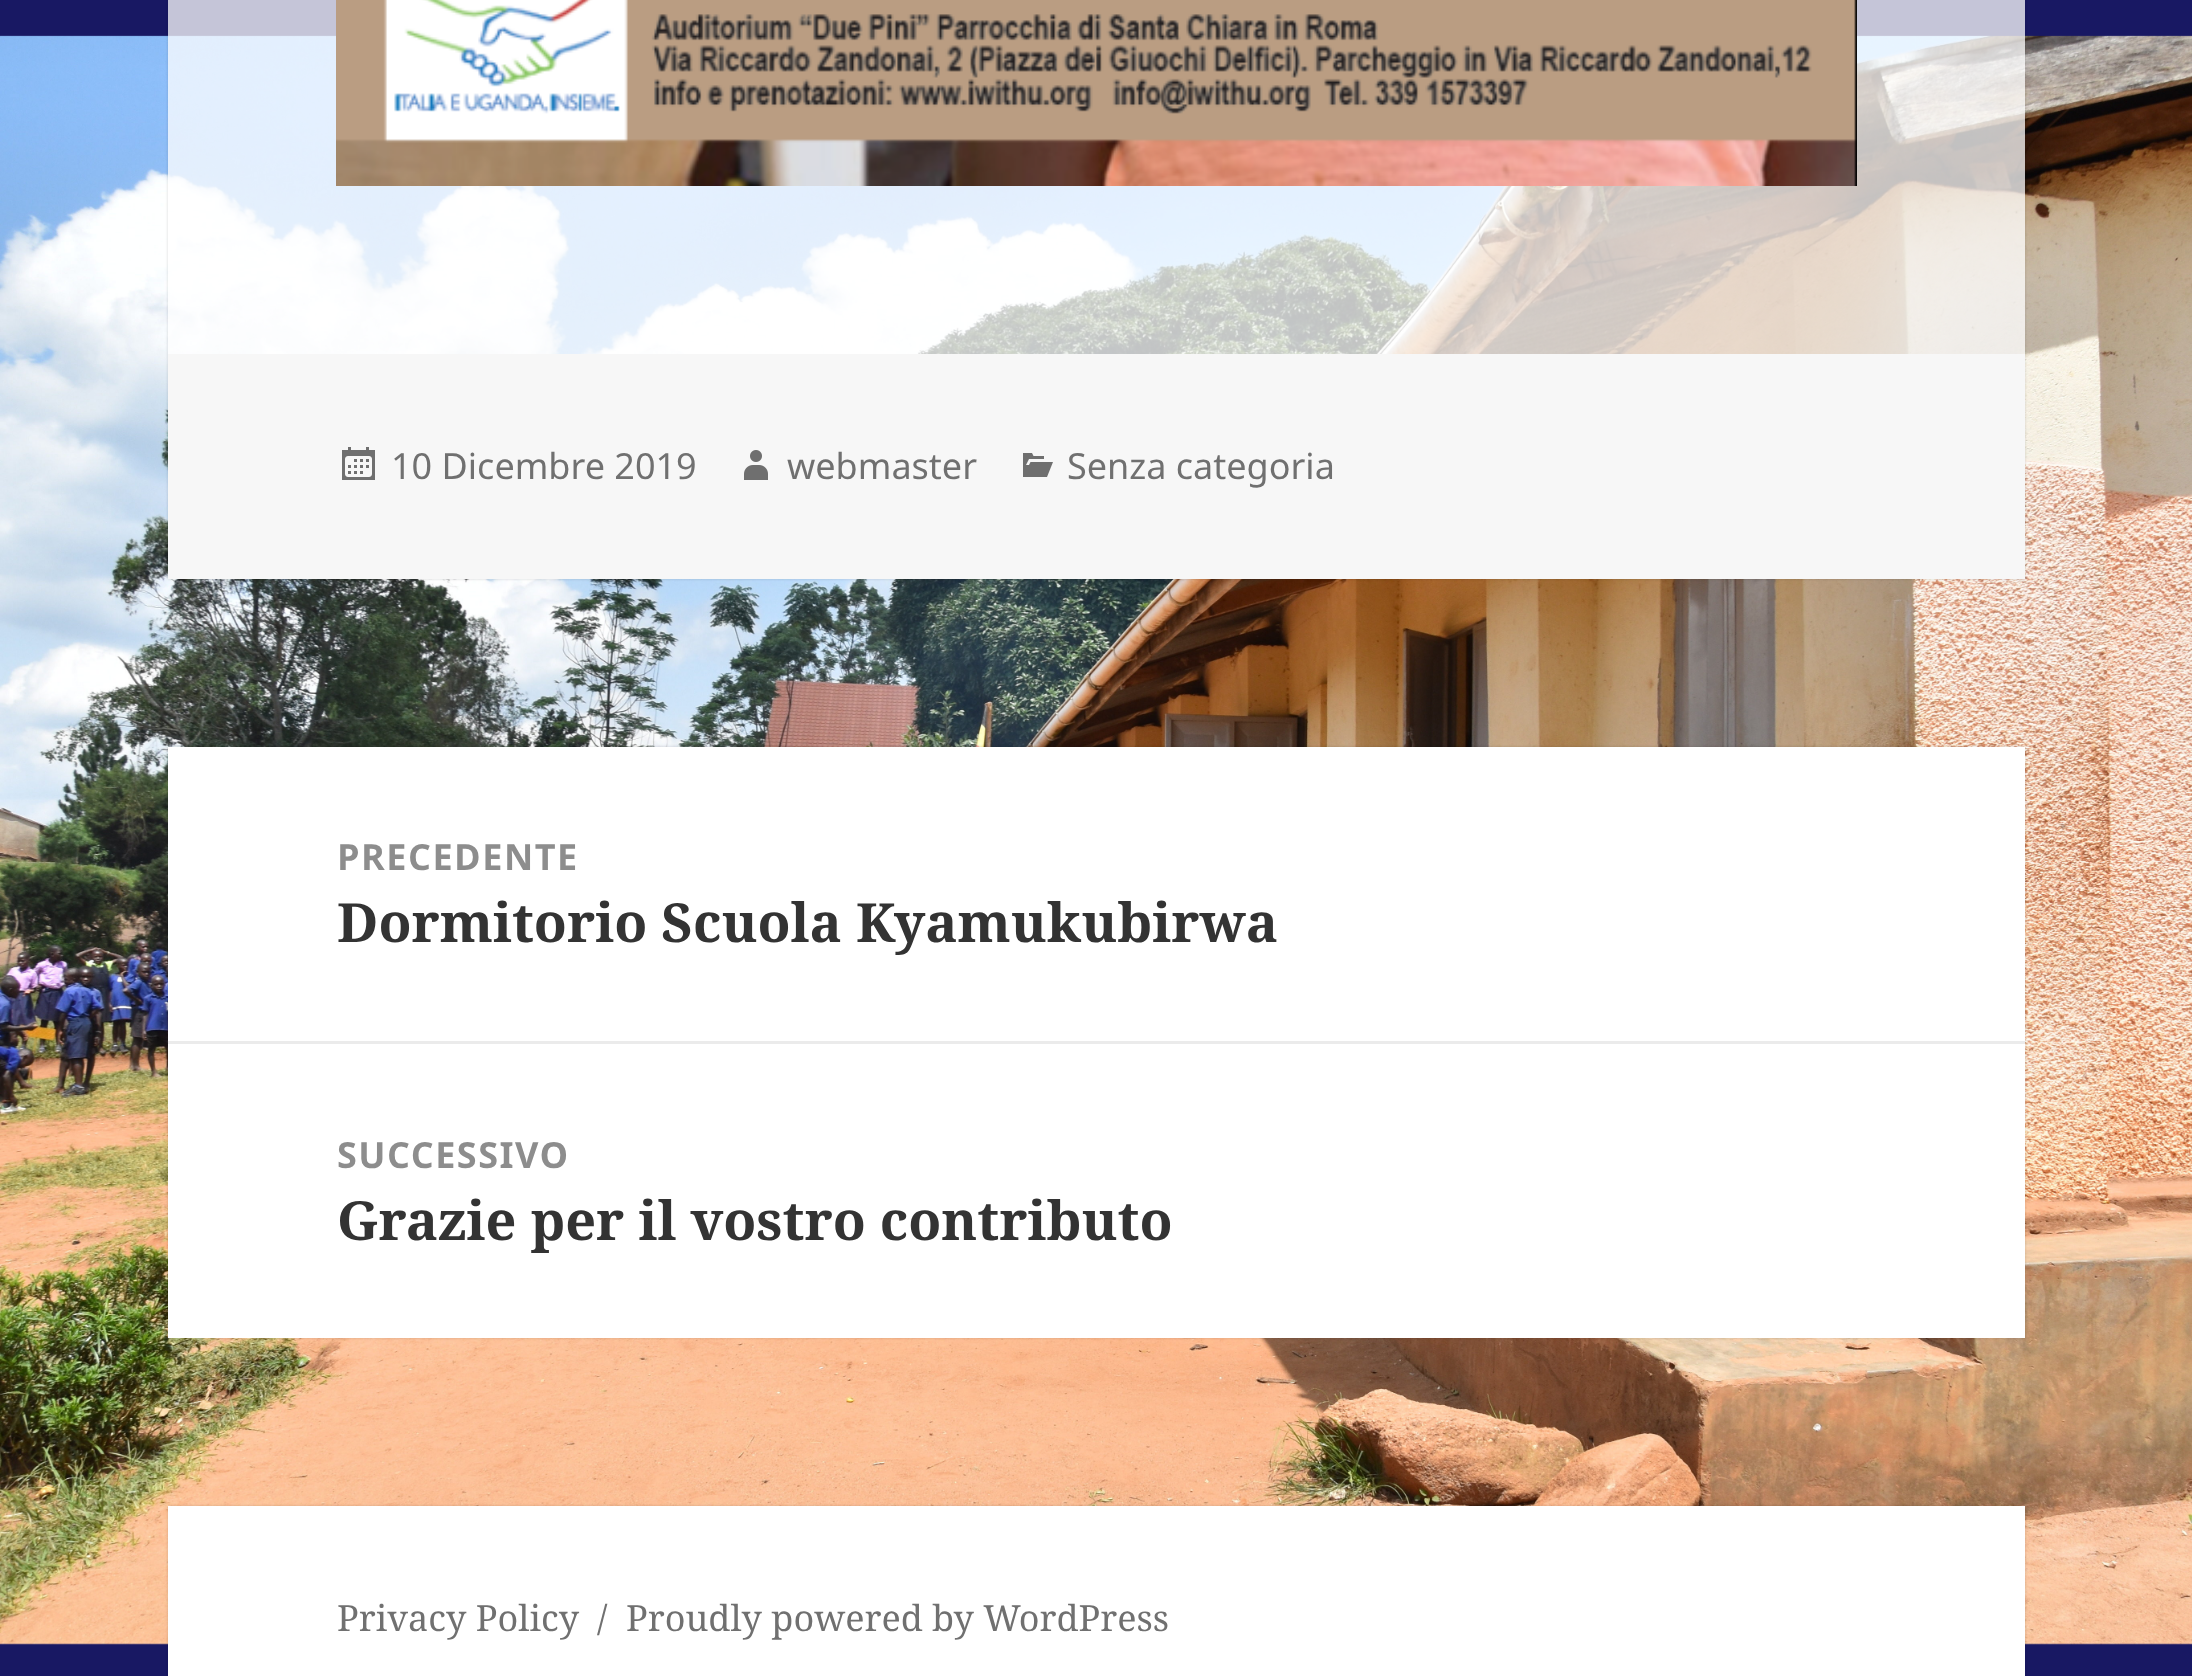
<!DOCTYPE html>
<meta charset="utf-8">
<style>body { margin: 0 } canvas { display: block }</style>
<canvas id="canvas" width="2192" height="1676"></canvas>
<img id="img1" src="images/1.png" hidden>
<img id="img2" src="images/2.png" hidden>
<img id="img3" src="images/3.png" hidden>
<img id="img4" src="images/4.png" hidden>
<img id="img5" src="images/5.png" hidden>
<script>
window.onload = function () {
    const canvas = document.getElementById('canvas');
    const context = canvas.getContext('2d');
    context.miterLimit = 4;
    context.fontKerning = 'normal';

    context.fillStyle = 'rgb(24, 24, 99)';
    context.fillRect(0, 0, 2192, 1676);
    context.drawImage(document.getElementById('img1'), 0, 35, 2192, 1610);
    context.save();
    context.beginPath();
    context.moveTo(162, 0);
    context.lineTo(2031, 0);
    context.lineTo(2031, 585);
    context.lineTo(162, 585);
    context.closePath();
    context.moveTo(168, -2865);
    context.lineTo(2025, -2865);
    context.lineTo(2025, 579);
    context.lineTo(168, 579);
    context.closePath();
    context.clip('evenodd');
    context.fillStyle = 'rgba(0, 0, 0, 0.15)';
    context.filter = 'blur(1.5px)';
    context.beginPath();
    context.rect(168, -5, 1857, 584);
    context.fill();
    context.filter = 'none';
    context.restore();
    context.fillStyle = 'rgba(255, 255, 255, 0.75)';
    context.fillRect(168, 0, 1857, 354);
    context.drawImage(document.getElementById('img2'), 336, 0, 1521, 186);
    context.fillStyle = 'rgb(247, 247, 247)';
    context.fillRect(168, 354, 1857, 225);
    context.drawImage(document.getElementById('img3'), 342, 447, 33, 33);
    context.drawImage(document.getElementById('img4'), 744, 450, 24, 30);
    context.drawImage(document.getElementById('img5'), 1023, 453, 30, 24);
    context.fillStyle = 'rgba(0, 0, 0, 0.15)';
    context.filter = 'blur(1.5px)';
    context.beginPath();
    context.rect(168, 747, 1857, 591);
    context.fill();
    context.filter = 'none';
    context.fillStyle = 'rgb(255, 255, 255)';
    context.fillRect(168, 747, 1857, 591);
    context.fillStyle = 'rgb(235, 235, 235)';
    context.fillRect(168, 1041, 1857, 3);
    context.fillStyle = 'rgba(0, 0, 0, 0.15)';
    context.filter = 'blur(1.5px)';
    context.beginPath();
    context.rect(168, 1506, 1857, 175);
    context.fill();
    context.filter = 'none';
    context.fillStyle = 'rgb(255, 255, 255)';
    context.fillRect(168, 1506, 1857, 170);
    context.font = '36px Noto Sans';
    context.fillStyle = 'rgb(112, 112, 112)';
    context.fillText('10 Dicembre 2019', 391, 479);
    context.fillText('webmaster', 787, 479);
    context.fillText('Senza categoria', 1067, 479);
    context.letterSpacing = '1.5px';
    context.font = 'bold 36px Noto Sans';
    context.fillStyle = 'rgb(141, 141, 141)';
    context.fillText('PRECEDENTE', 337, 870);
    context.letterSpacing = '0px';
    context.font = 'bold 54px Noto Serif';
    context.fillStyle = 'rgb(51, 51, 51)';
    context.fillText('Dormitorio Scuola Kyamukubirwa', 337, 942);
    context.letterSpacing = '1.5px';
    context.font = 'bold 36px Noto Sans';
    context.fillStyle = 'rgb(141, 141, 141)';
    context.fillText('SUCCESSIVO', 337, 1168);
    context.letterSpacing = '0px';
    context.font = 'bold 54px Noto Serif';
    context.fillStyle = 'rgb(51, 51, 51)';
    context.fillText('Grazie per il vostro contributo', 337, 1240);
    context.font = '36px Noto Serif';
    context.fillStyle = 'rgb(112, 112, 112)';
    context.fillText('Privacy Policy', 337, 1631);
    context.fillText('/', 597, 1631);
    context.fillText('Proudly powered by WordPress', 626, 1631);
};
</script>
